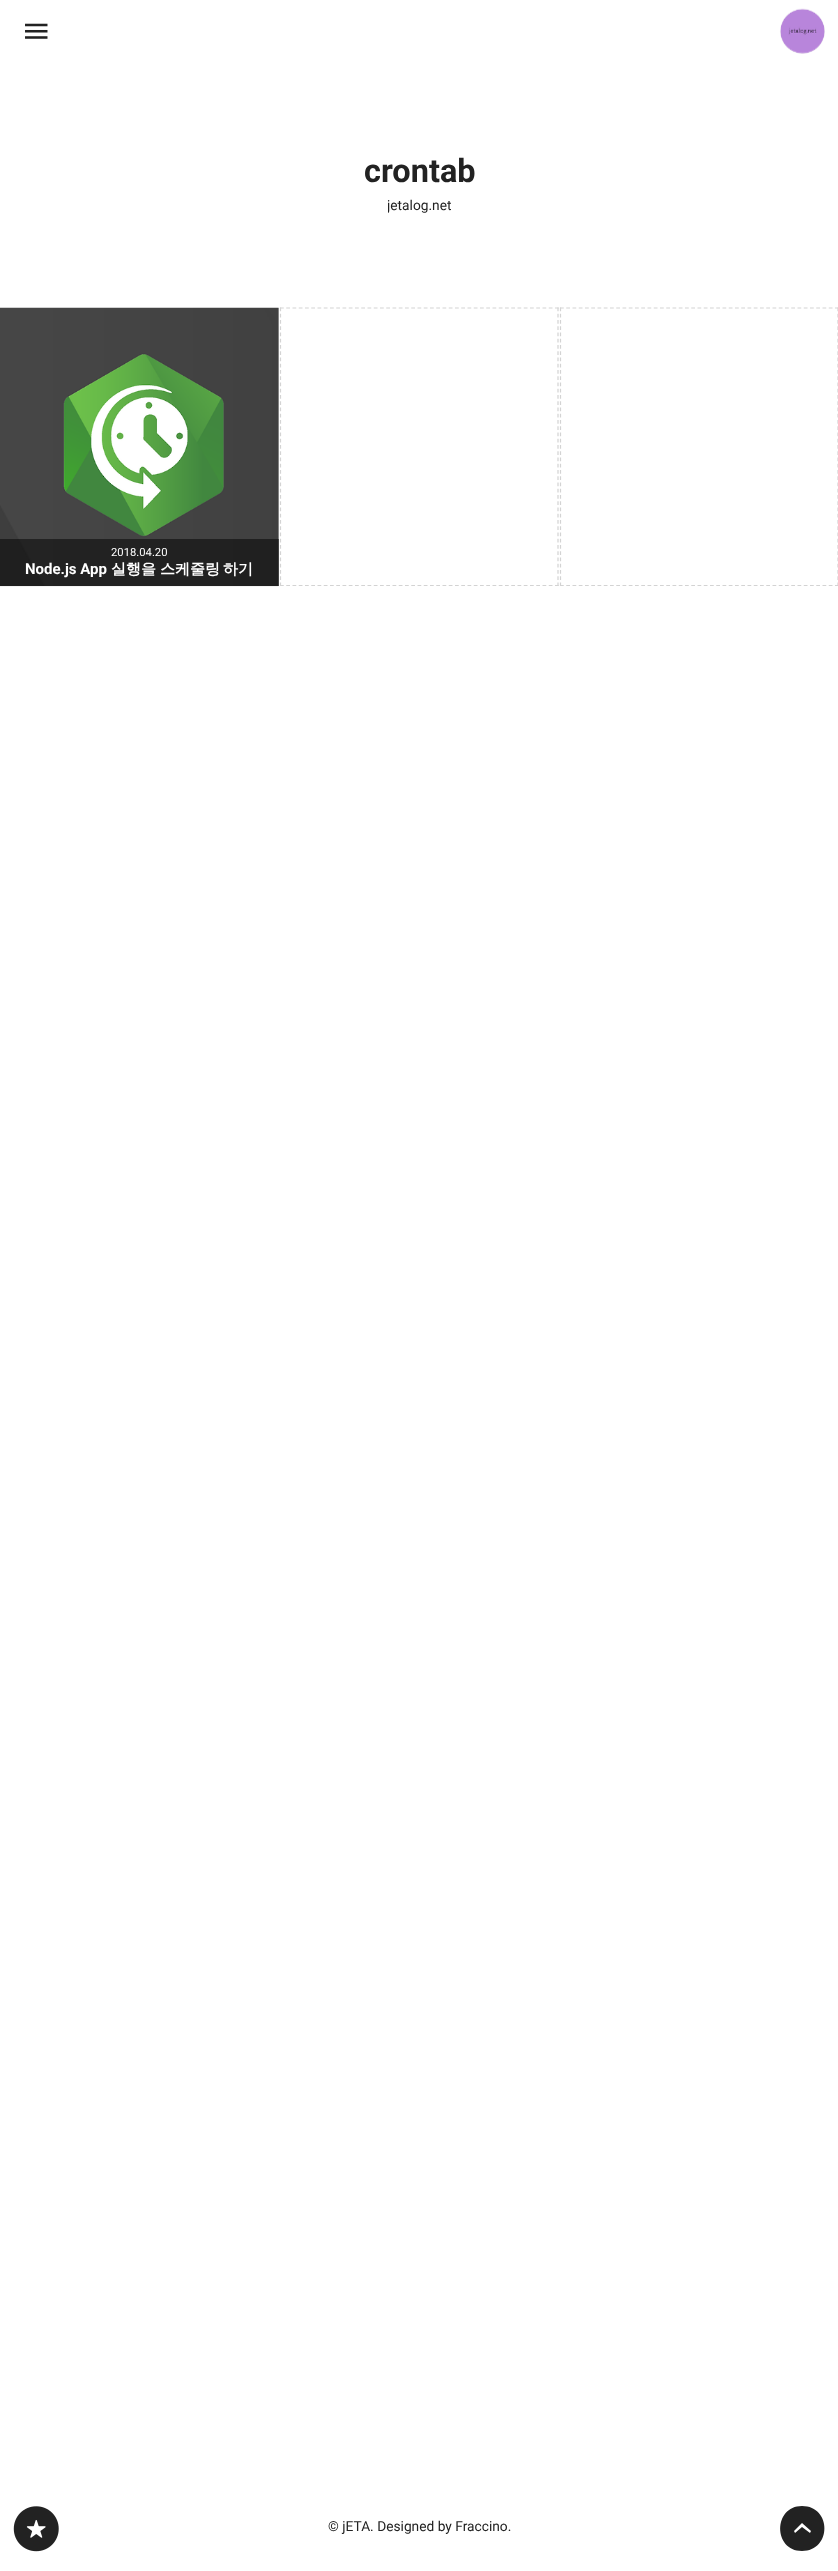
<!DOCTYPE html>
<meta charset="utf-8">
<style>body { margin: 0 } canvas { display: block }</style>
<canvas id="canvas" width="838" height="2571"></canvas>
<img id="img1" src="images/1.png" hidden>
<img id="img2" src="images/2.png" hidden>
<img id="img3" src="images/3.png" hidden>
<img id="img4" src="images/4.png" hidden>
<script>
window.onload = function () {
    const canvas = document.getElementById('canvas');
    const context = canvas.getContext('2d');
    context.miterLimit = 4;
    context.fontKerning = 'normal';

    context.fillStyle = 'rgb(255, 255, 255)';
    context.fillRect(0, 0, 838, 2571);
    context.drawImage(document.getElementById('img1'), 25, 23, 23, 16);
    context.fillStyle = 'rgb(245, 245, 245)';
    context.beginPath();
    context.arc(802.5, 31.5, 22.5, 0, 2 * Math.PI);
    context.fill();
    context.drawImage(document.getElementById('img2'), 780, 8, 45, 46);
    context.fillStyle = 'rgb(220, 220, 220)';
    context.fillRect(278, 308, 1, 278);
    context.drawImage(document.getElementById('img3'), 0, 307, 279, 280);
    context.fillStyle = 'rgba(0, 0, 0, 0.5)';
    context.fillRect(0, 539, 279, 47);
    context.beginPath();
    context.moveTo(280, 308);
    context.lineTo(559, 308);
    context.strokeStyle = 'rgb(211, 211, 211)';
    context.lineWidth = 1.2;
    context.setLineDash([3.75, 2.5]);
    context.stroke();
    context.beginPath();
    context.moveTo(558, 307.5);
    context.lineTo(558, 586);
    context.stroke();
    context.beginPath();
    context.moveTo(280, 585.5);
    context.lineTo(559, 585.5);
    context.stroke();
    context.beginPath();
    context.moveTo(280.5, 307.5);
    context.lineTo(280.5, 586);
    context.stroke();
    context.beginPath();
    context.moveTo(560, 308);
    context.lineTo(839, 308);
    context.stroke();
    context.beginPath();
    context.moveTo(838, 307.5);
    context.lineTo(838, 586);
    context.stroke();
    context.beginPath();
    context.moveTo(560, 585.5);
    context.lineTo(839, 585.5);
    context.stroke();
    context.beginPath();
    context.moveTo(560.5, 307.5);
    context.lineTo(560.5, 586);
    context.stroke();
    context.drawImage(document.getElementById('img4'), 13, 2506, 46, 46);
    context.fillStyle = 'rgb(34, 34, 34)';
    context.beginPath();
    context.moveTo(802, 2506);
    context.bezierCurveTo(773, 2506, 773, 2551, 802, 2551);
    context.bezierCurveTo(832, 2551, 832, 2506, 802, 2506);
    context.closePath();
    context.moveTo(810, 2533);
    context.lineTo(802, 2527);
    context.lineTo(795, 2533);
    context.lineTo(794, 2531);
    context.lineTo(802, 2523);
    context.lineTo(811, 2531);
    context.closePath();
    context.fill();
    context.font = 'bold 32.5px Roboto';
    context.fillText('crontab', 364, 182);
    context.save();
    context.beginPath();
    context.rect(388, 198, 63, 16);
    context.clip();
    context.font = '13.75px Roboto';
    context.fillText('jetalog.net', 387, 210);
    context.restore();
    context.font = '11.25px Roboto';
    context.fillStyle = 'rgb(255, 255, 255)';
    context.fillText('2018.04.20', 111, 556);
    context.font = 'bold 15px Roboto';
    context.fillText('Node.js App', 25, 574);
    context.font = 'bold 15px WenQuanYi Zen Hei';
    context.fillText('실행을', 111, 574);
    context.fillText('스케줄링', 160, 574);
    context.fillText('하기', 223, 574);
    context.font = '13.75px Roboto';
    context.fillStyle = 'rgb(34, 34, 34)';
    context.fillText('© jETA. Designed by Fraccino.', 328, 2531);
};
</script>
